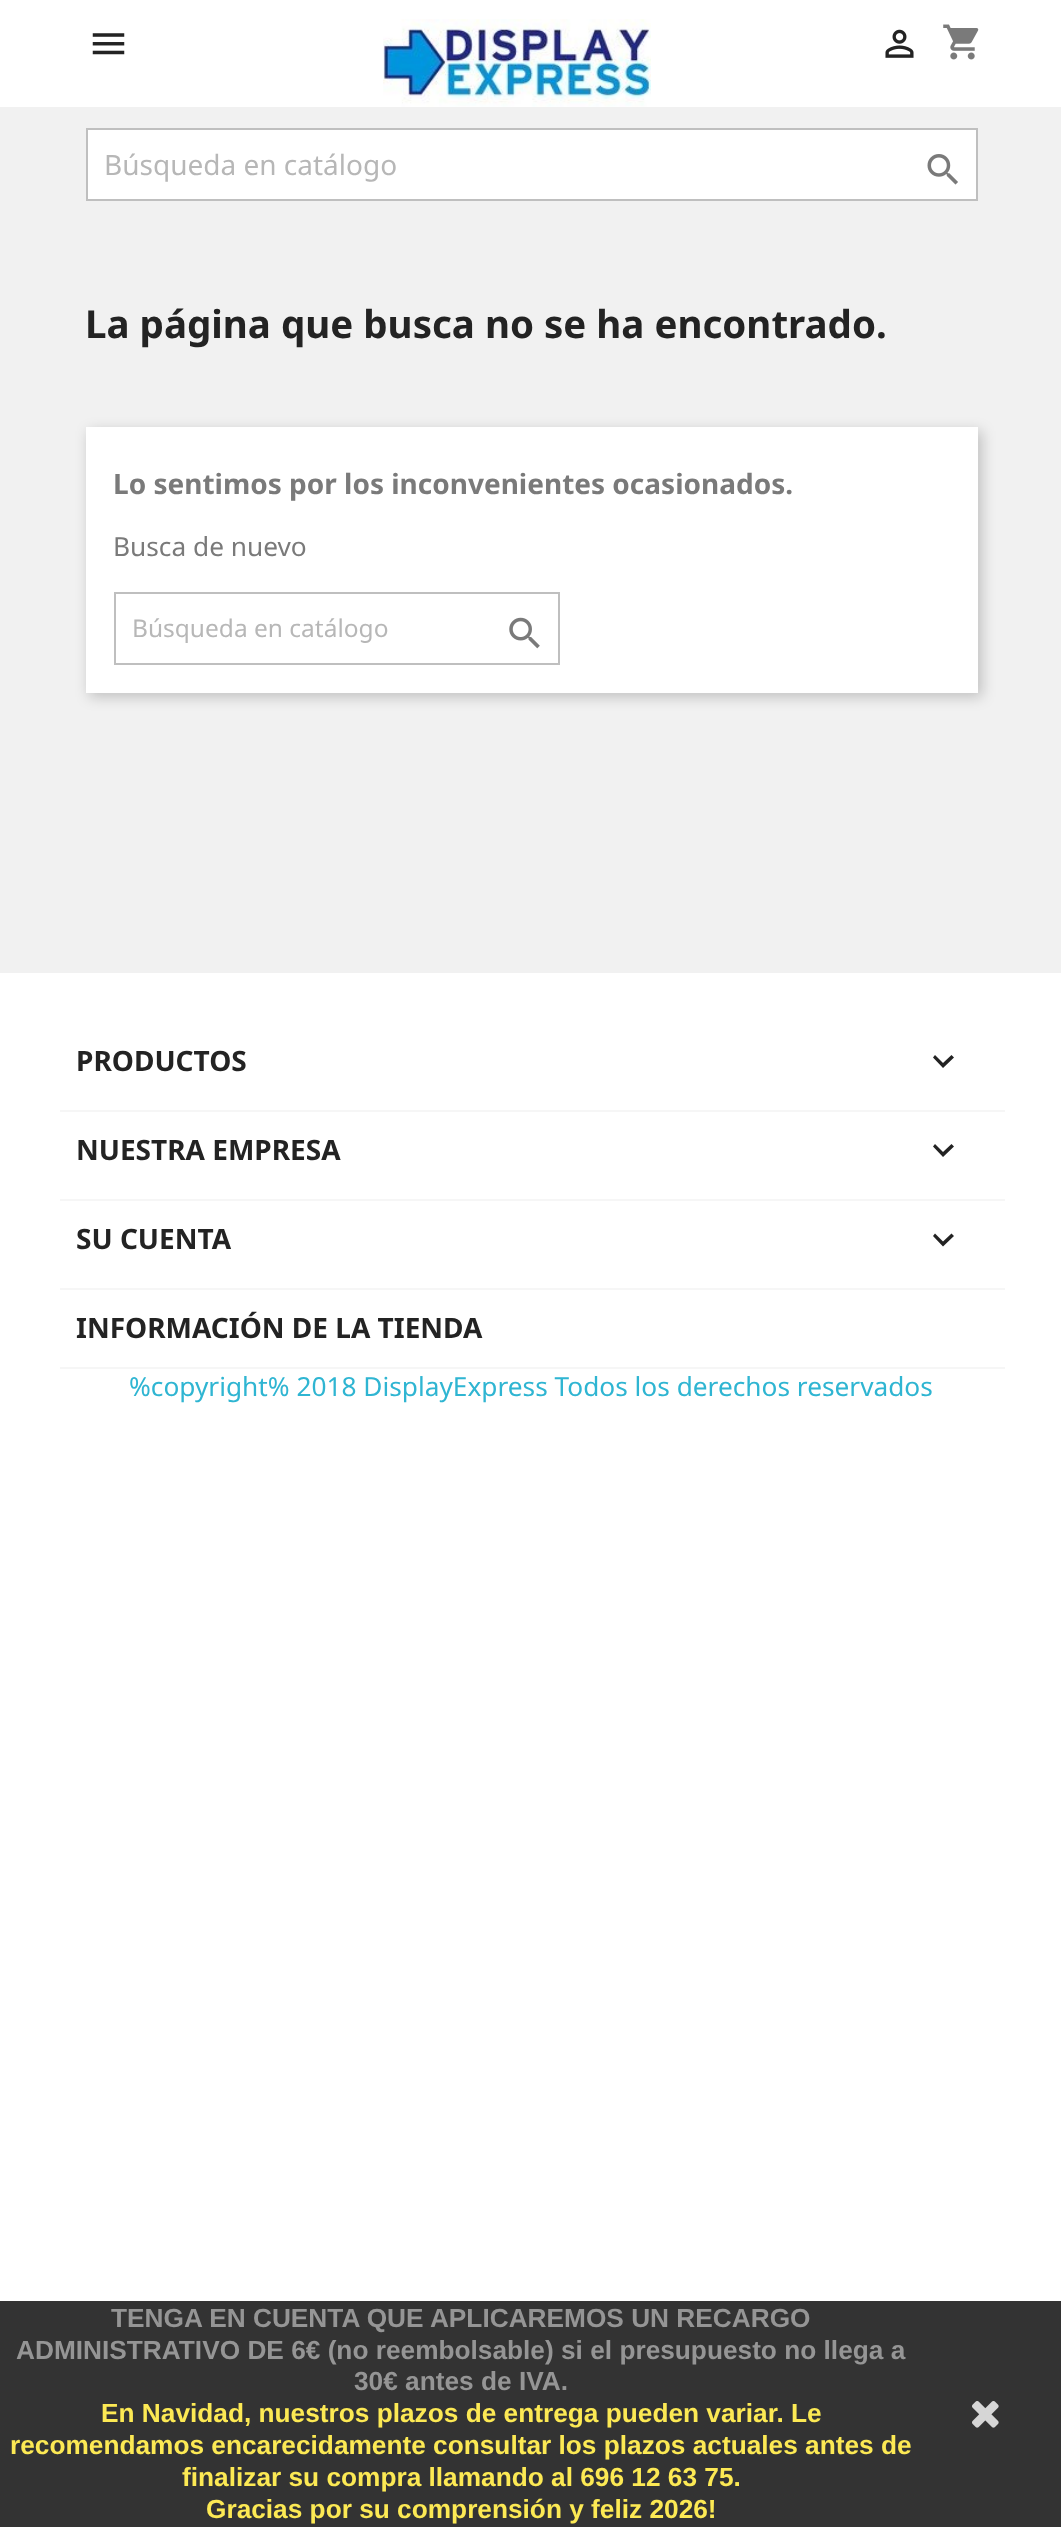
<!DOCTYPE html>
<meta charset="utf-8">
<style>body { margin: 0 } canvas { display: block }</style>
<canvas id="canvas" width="1061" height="2527"></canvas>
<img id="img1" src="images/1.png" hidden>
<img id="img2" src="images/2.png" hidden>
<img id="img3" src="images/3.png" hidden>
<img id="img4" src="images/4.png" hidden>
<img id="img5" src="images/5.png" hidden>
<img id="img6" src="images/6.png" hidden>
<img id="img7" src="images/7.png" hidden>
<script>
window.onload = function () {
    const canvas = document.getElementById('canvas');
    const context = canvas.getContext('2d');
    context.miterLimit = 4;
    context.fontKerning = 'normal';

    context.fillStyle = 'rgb(255, 255, 255)';
    context.fillRect(0, 0, 1061, 2527);
    context.fillStyle = 'rgb(241, 241, 241)';
    context.fillRect(0, 107, 1061, 866);
    context.drawImage(document.getElementById('img1'), 92, 33, 33, 22);
    context.drawImage(document.getElementById('img2'), 383, 19, 268, 88);
    context.drawImage(document.getElementById('img3'), 885, 29, 29, 29);
    context.drawImage(document.getElementById('img4'), 943, 24, 36, 36);
    context.fillStyle = 'rgb(255, 255, 255)';
    context.beginPath();
    context.rect(87, 129, 890, 71);
    context.fill();
    context.strokeStyle = 'rgb(191, 191, 191)';
    context.lineWidth = 2;
    context.stroke();
    context.drawImage(document.getElementById('img5'), 927, 154, 31, 31);
    context.fillStyle = 'rgba(0, 0, 0, 0.2)';
    context.filter = 'blur(7px)';
    context.beginPath();
    context.rect(89, 431, 893, 266);
    context.fill();
    context.filter = 'none';
    context.fillStyle = 'rgb(255, 255, 255)';
    context.fillRect(86, 427, 892, 266);
    context.strokeRect(115, 593, 444, 71);
    context.drawImage(document.getElementById('img6'), 509, 617, 31, 32);
    context.fillStyle = 'rgb(246, 246, 246)';
    context.fillRect(60, 1110, 945, 2);
    context.fillStyle = 'rgb(35, 35, 35)';
    context.beginPath();
    context.moveTo(935, 1055);
    context.lineTo(943, 1063);
    context.lineTo(951.5, 1055);
    context.lineTo(954, 1057.5);
    context.lineTo(943, 1068);
    context.lineTo(933, 1057.5);
    context.closePath();
    context.fill();
    context.fillStyle = 'rgb(246, 246, 246)';
    context.fillRect(60, 1199, 945, 2);
    context.fillStyle = 'rgb(35, 35, 35)';
    context.beginPath();
    context.moveTo(935, 1144);
    context.lineTo(943, 1152);
    context.lineTo(951.5, 1144);
    context.lineTo(954, 1146.5);
    context.lineTo(943, 1157);
    context.lineTo(933, 1146.5);
    context.closePath();
    context.fill();
    context.fillStyle = 'rgb(246, 246, 246)';
    context.fillRect(60, 1288, 945, 2);
    context.fillStyle = 'rgb(35, 35, 35)';
    context.beginPath();
    context.moveTo(935, 1233.5);
    context.lineTo(943, 1241.5);
    context.lineTo(951.5, 1233.5);
    context.lineTo(954, 1236);
    context.lineTo(943, 1246.5);
    context.lineTo(933, 1236);
    context.closePath();
    context.fill();
    context.fillStyle = 'rgb(246, 246, 246)';
    context.fillRect(60, 1367, 945, 2);
    context.fillStyle = 'rgb(51, 51, 51)';
    context.fillRect(0, 2301, 1061, 226);
    context.drawImage(document.getElementById('img7'), 972, 2401, 27, 27);
    context.font = '28px Noto Sans';
    context.fillStyle = 'rgb(183, 183, 183)';
    context.fillText('Búsqueda en catálogo', 104, 175);
    context.font = 'bold 38.5px Noto Sans';
    context.fillStyle = 'rgb(35, 35, 35)';
    context.fillText('La página que busca no se ha encontrado.', 85, 338);
    context.font = 'bold 28px Noto Sans';
    context.fillStyle = 'rgb(122, 122, 122)';
    context.fillText('Lo sentimos por los inconvenientes ocasionados.', 113, 494);
    context.font = '26.25px Noto Sans';
    context.fillText('Busca de nuevo', 113, 556);
    context.font = '24.5px Noto Sans';
    context.fillStyle = 'rgb(183, 183, 183)';
    context.fillText('Búsqueda en catálogo', 132, 637);
    context.font = 'bold 28px Noto Sans';
    context.fillStyle = 'rgb(35, 35, 35)';
    context.fillText('PRODUCTOS', 76, 1071);
    context.fillText('NUESTRA EMPRESA', 76, 1160);
    context.fillText('SU CUENTA', 76, 1249);
    context.fillText('INFORMACIÓN DE LA TIENDA', 76, 1338);
    context.font = '26.25px Noto Sans';
    context.fillStyle = 'rgb(47, 181, 210)';
    context.fillText('%copyright% 2018 DisplayExpress Todos los derechos reservados', 129, 1396);
    context.font = 'bold 26.25px Liberation Sans';
    context.fillStyle = 'rgb(149, 149, 149)';
    context.fillText('TENGA EN CUENTA QUE APLICAREMOS UN RECARGO', 111, 2327);
    context.fillText('ADMINISTRATIVO DE 6€ (no reembolsable) si el presupuesto no llega a', 16, 2359);
    context.fillText('30€ antes de IVA.', 354, 2390);
    context.fillStyle = 'rgb(252, 233, 84)';
    context.fillText('En Navidad, nuestros plazos de entrega pueden variar. Le', 101, 2422);
    context.fillText('recomendamos encarecidamente consultar los plazos actuales antes de', 10, 2454);
    context.fillText('finalizar su compra llamando al 696 12 63 75.', 182, 2486);
    context.fillText('Gracias por su comprensión y feliz 2026!', 206, 2518);
};
</script>
